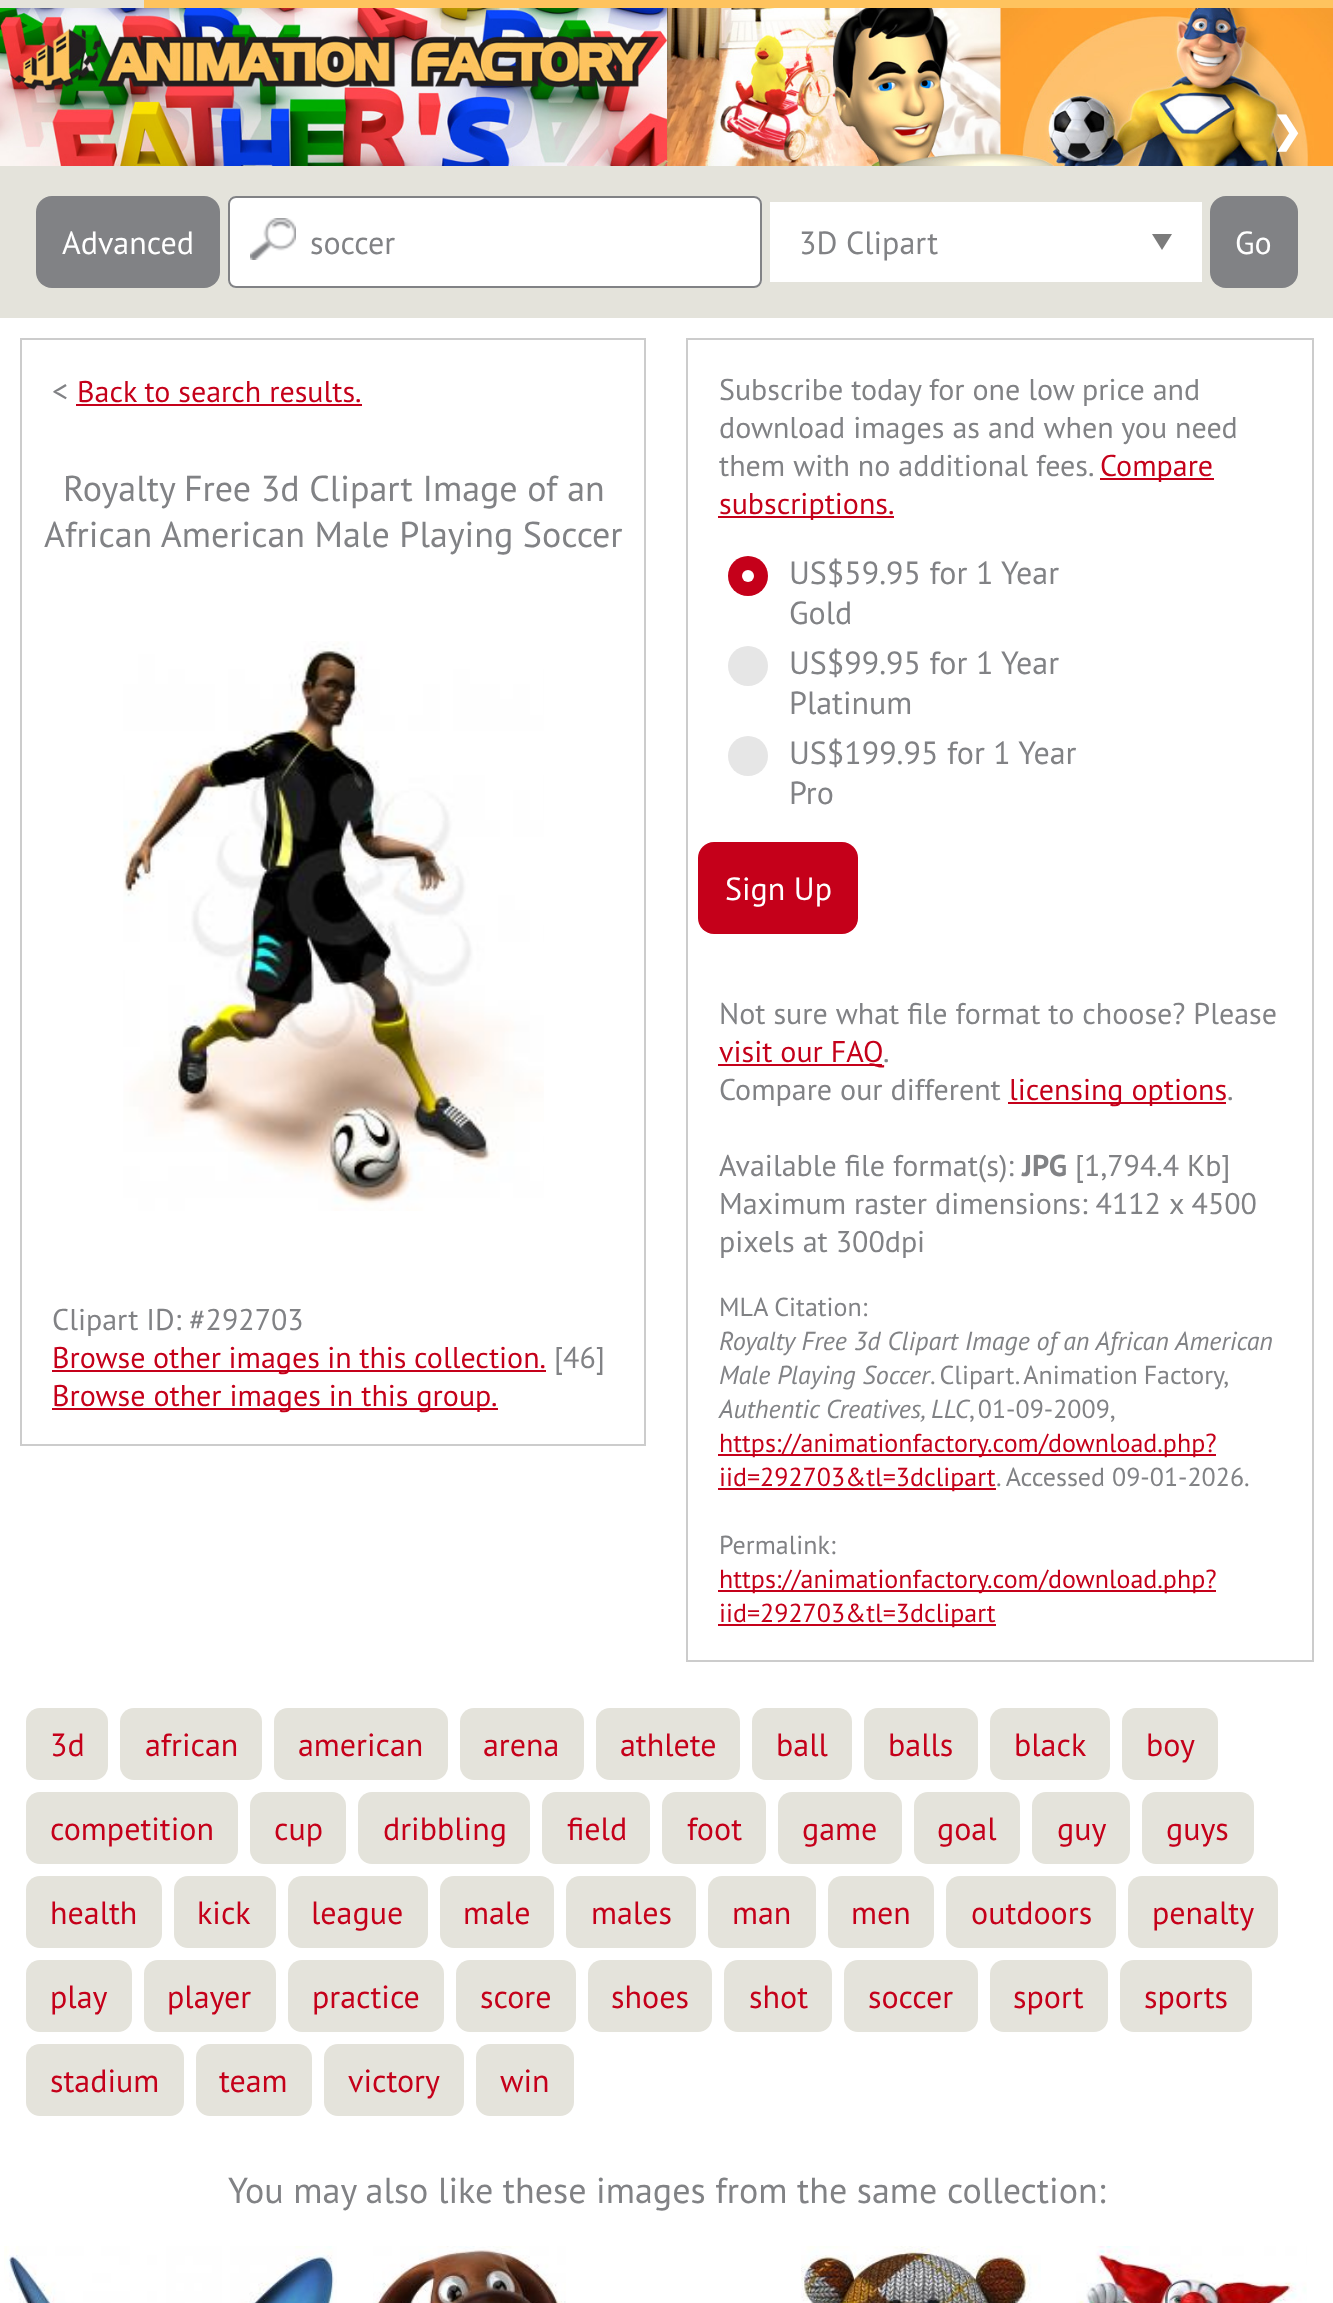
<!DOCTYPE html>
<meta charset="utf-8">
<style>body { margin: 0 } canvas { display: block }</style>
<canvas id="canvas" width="1333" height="2303"></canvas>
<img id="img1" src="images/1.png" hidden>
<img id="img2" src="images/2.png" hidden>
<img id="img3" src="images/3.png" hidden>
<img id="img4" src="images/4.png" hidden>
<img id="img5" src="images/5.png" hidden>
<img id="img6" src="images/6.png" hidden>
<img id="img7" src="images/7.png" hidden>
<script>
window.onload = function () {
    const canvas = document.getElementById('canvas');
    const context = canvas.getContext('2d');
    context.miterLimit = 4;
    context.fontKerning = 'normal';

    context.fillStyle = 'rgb(255, 255, 255)';
    context.fillRect(0, 0, 1333, 2303);
    context.fillStyle = 'rgb(254, 195, 94)';
    context.fillRect(144, 0, 1189, 8);
    context.fillStyle = 'rgb(228, 227, 219)';
    context.fillRect(0, 0, 144, 8);
    context.drawImage(document.getElementById('img1'), 0, 8, 1333, 158);
    context.fillRect(0, 166, 1333, 152);
    context.fillStyle = 'rgb(129, 130, 133)';
    context.beginPath();
    context.roundRect(36, 196, 184, 92, 16);
    context.fill();
    context.fillStyle = 'rgb(255, 255, 255)';
    context.beginPath();
    context.roundRect(228, 196, 534, 92, 8);
    context.fill();
    context.drawImage(document.getElementById('img2'), 250, 218, 46, 42);
    context.beginPath();
    context.roundRect(229, 197, 532, 90, 7);
    context.strokeStyle = 'rgb(129, 130, 133)';
    context.lineWidth = 2;
    context.stroke();
    context.fillRect(770, 202, 432, 80);
    context.fillStyle = 'rgb(123, 123, 123)';
    context.beginPath();
    context.moveTo(1152, 234);
    context.lineTo(1172, 234);
    context.lineTo(1162, 250);
    context.closePath();
    context.fill();
    context.fillStyle = 'rgb(129, 130, 133)';
    context.beginPath();
    context.roundRect(1210, 196, 88, 92, 16);
    context.fill();
    context.strokeStyle = 'rgb(204, 204, 204)';
    context.strokeRect(21, 339, 624, 1106);
    context.fillStyle = 'rgb(197, 0, 26)';
    context.fillRect(76, 404, 286, 2);
    context.drawImage(document.getElementById('img3'), 123, 641, 421, 570);
    context.fillRect(52, 1370, 494, 2);
    context.fillRect(52, 1408, 446, 2);
    context.strokeRect(687, 339, 626, 1322);
    context.fillRect(1100, 478, 114, 2);
    context.fillRect(718, 516, 176, 2);
    context.beginPath();
    context.arc(748, 576, 20, 0, 2 * Math.PI);
    context.fill();
    context.fillStyle = 'rgb(255, 255, 255)';
    context.beginPath();
    context.arc(748, 576, 6, 0, 2 * Math.PI);
    context.fill();
    context.fillStyle = 'rgb(230, 230, 230)';
    context.beginPath();
    context.arc(748, 666, 20, 0, 2 * Math.PI);
    context.fill();
    context.beginPath();
    context.arc(748, 756, 20, 0, 2 * Math.PI);
    context.fill();
    context.fillStyle = 'rgb(197, 0, 26)';
    context.beginPath();
    context.roundRect(698, 842, 160, 92, 16);
    context.fill();
    context.fillRect(718, 1064, 164, 2);
    context.fillRect(1008, 1102, 218, 2);
    context.fillRect(718, 1454, 498, 2);
    context.fillRect(718, 1488, 278, 2);
    context.fillRect(718, 1590, 498, 2);
    context.fillRect(718, 1624, 278, 2);
    context.fillStyle = 'rgb(228, 227, 219)';
    context.beginPath();
    context.roundRect(26, 1708, 82, 72, 14);
    context.fill();
    context.beginPath();
    context.roundRect(120, 1708, 142, 72, 14);
    context.fill();
    context.beginPath();
    context.roundRect(274, 1708, 174, 72, 14);
    context.fill();
    context.beginPath();
    context.roundRect(460, 1708, 124, 72, 14);
    context.fill();
    context.beginPath();
    context.roundRect(596, 1708, 144, 72, 14);
    context.fill();
    context.beginPath();
    context.roundRect(752, 1708, 100, 72, 14);
    context.fill();
    context.beginPath();
    context.roundRect(864, 1708, 114, 72, 14);
    context.fill();
    context.beginPath();
    context.roundRect(990, 1708, 120, 72, 14);
    context.fill();
    context.beginPath();
    context.roundRect(1122, 1708, 96, 72, 14);
    context.fill();
    context.beginPath();
    context.roundRect(26, 1792, 212, 72, 14);
    context.fill();
    context.beginPath();
    context.roundRect(250, 1792, 96, 72, 14);
    context.fill();
    context.beginPath();
    context.roundRect(358, 1792, 172, 72, 14);
    context.fill();
    context.beginPath();
    context.roundRect(542, 1792, 108, 72, 14);
    context.fill();
    context.beginPath();
    context.roundRect(662, 1792, 104, 72, 14);
    context.fill();
    context.beginPath();
    context.roundRect(778, 1792, 124, 72, 14);
    context.fill();
    context.beginPath();
    context.roundRect(914, 1792, 106, 72, 14);
    context.fill();
    context.beginPath();
    context.roundRect(1032, 1792, 98, 72, 14);
    context.fill();
    context.beginPath();
    context.roundRect(1142, 1792, 112, 72, 14);
    context.fill();
    context.beginPath();
    context.roundRect(26, 1876, 136, 72, 14);
    context.fill();
    context.beginPath();
    context.roundRect(174, 1876, 102, 72, 14);
    context.fill();
    context.beginPath();
    context.roundRect(288, 1876, 140, 72, 14);
    context.fill();
    context.beginPath();
    context.roundRect(440, 1876, 114, 72, 14);
    context.fill();
    context.beginPath();
    context.roundRect(566, 1876, 130, 72, 14);
    context.fill();
    context.beginPath();
    context.roundRect(708, 1876, 108, 72, 14);
    context.fill();
    context.beginPath();
    context.roundRect(828, 1876, 106, 72, 14);
    context.fill();
    context.beginPath();
    context.roundRect(946, 1876, 170, 72, 14);
    context.fill();
    context.beginPath();
    context.roundRect(1128, 1876, 150, 72, 14);
    context.fill();
    context.beginPath();
    context.roundRect(26, 1960, 106, 72, 14);
    context.fill();
    context.beginPath();
    context.roundRect(144, 1960, 132, 72, 14);
    context.fill();
    context.beginPath();
    context.roundRect(288, 1960, 156, 72, 14);
    context.fill();
    context.beginPath();
    context.roundRect(456, 1960, 120, 72, 14);
    context.fill();
    context.beginPath();
    context.roundRect(588, 1960, 124, 72, 14);
    context.fill();
    context.beginPath();
    context.roundRect(724, 1960, 108, 72, 14);
    context.fill();
    context.beginPath();
    context.roundRect(844, 1960, 134, 72, 14);
    context.fill();
    context.beginPath();
    context.roundRect(990, 1960, 118, 72, 14);
    context.fill();
    context.beginPath();
    context.roundRect(1120, 1960, 132, 72, 14);
    context.fill();
    context.beginPath();
    context.roundRect(26, 2044, 158, 72, 14);
    context.fill();
    context.beginPath();
    context.roundRect(196, 2044, 116, 72, 14);
    context.fill();
    context.beginPath();
    context.roundRect(324, 2044, 140, 72, 14);
    context.fill();
    context.beginPath();
    context.roundRect(476, 2044, 98, 72, 14);
    context.fill();
    context.drawImage(document.getElementById('img4'), 4, 2246, 333, 57);
    context.drawImage(document.getElementById('img5'), 373, 2246, 193, 57);
    context.drawImage(document.getElementById('img6'), 801, 2246, 240, 57);
    context.drawImage(document.getElementById('img7'), 1076, 2246, 231, 57);
    context.font = 'bold 36px DejaVu Sans';
    context.fillStyle = 'rgb(255, 255, 255)';
    context.fillText('❯', 1272, 143);
    context.font = '32px PT Sans';
    context.fillText('Advanced', 62, 254);
    context.fillStyle = 'rgb(129, 130, 133)';
    context.fillText('soccer', 310, 254);
    context.fillText('3D Clipart', 799, 254);
    context.fillStyle = 'rgb(255, 255, 255)';
    context.fillText('Go', 1235, 254);
    context.fillStyle = 'rgb(129, 130, 133)';
    context.fillText('<', 52, 402);
    context.font = '30px PT Sans';
    context.fillStyle = 'rgb(197, 0, 26)';
    context.fillText('Back to search results.', 77, 402);
    context.font = '36px PT Sans';
    context.fillStyle = 'rgb(129, 130, 133)';
    context.fillText('Royalty Free 3d Clipart Image of an', 63, 501);
    context.fillText('African American Male Playing Soccer', 44, 547);
    context.font = '30px PT Sans';
    context.fillText('Clipart ID: #292703', 52, 1330);
    context.wordSpacing = '-0.5px';
    context.fillStyle = 'rgb(197, 0, 26)';
    context.fillText('Browse other images in this collection.', 52, 1368);
    context.wordSpacing = '0px';
    context.fillStyle = 'rgb(129, 130, 133)';
    context.fillText('[46]', 554, 1368);
    context.fillStyle = 'rgb(197, 0, 26)';
    context.fillText('Browse other images in this group.', 52, 1406);
    context.fillStyle = 'rgb(129, 130, 133)';
    context.fillText('Subscribe today for one low price and', 719, 400);
    context.fillText('download images as and when you need', 719, 438);
    context.fillText('them with no additional fees.', 719, 476);
    context.fillStyle = 'rgb(197, 0, 26)';
    context.fillText('Compare', 1100, 476);
    context.fillText('subscriptions.', 719, 514);
    context.font = '32px PT Sans';
    context.fillStyle = 'rgb(129, 130, 133)';
    context.fillText('US$59.95 for 1 Year', 789, 584);
    context.fillText('Gold', 789, 624);
    context.fillText('US$99.95 for 1 Year', 789, 674);
    context.fillText('Platinum', 789, 714);
    context.fillText('US$199.95 for 1 Year', 789, 764);
    context.fillText('Pro', 789, 804);
    context.fillStyle = 'rgb(255, 255, 255)';
    context.fillText('Sign Up', 725, 900);
    context.font = '30px PT Sans';
    context.fillStyle = 'rgb(129, 130, 133)';
    context.fillText('Not sure what file format to choose? Please', 719, 1024);
    context.fillStyle = 'rgb(197, 0, 26)';
    context.fillText('visit our FAQ', 719, 1062);
    context.fillStyle = 'rgb(129, 130, 133)';
    context.fillText('.', 883, 1062);
    context.fillText('Compare our different', 719, 1100);
    context.fillStyle = 'rgb(197, 0, 26)';
    context.fillText('licensing options', 1009, 1100);
    context.fillStyle = 'rgb(129, 130, 133)';
    context.fillText('.', 1227, 1100);
    context.fillText('Available file format(s):', 719, 1176);
    context.font = 'bold 30px PT Sans';
    context.fillText('JPG', 1022, 1176);
    context.font = '30px PT Sans';
    context.fillText('[1,794.4 Kb]', 1075, 1176);
    context.fillText('Maximum raster dimensions: 4112 x 4500', 719, 1214);
    context.fillText('pixels at 300dpi', 719, 1252);
    context.font = '26px PT Sans';
    context.fillText('MLA Citation:', 719, 1316);
    context.font = 'italic 26px PT Sans';
    context.fillText('Royalty Free 3d Clipart Image of an African American', 719, 1350);
    context.fillText('Male Playing Soccer', 719, 1384);
    context.wordSpacing = '-1px';
    context.font = '26px PT Sans';
    context.fillText('. Clipart. Animation Factory,', 930, 1384);
    context.wordSpacing = '0px';
    context.font = 'italic 26px PT Sans';
    context.fillText('Authentic Creatives, LLC', 719, 1418);
    context.wordSpacing = '-2px';
    context.font = '26px PT Sans';
    context.fillText(', 01-09-2009,', 969, 1418);
    context.wordSpacing = '0px';
    context.fillStyle = 'rgb(197, 0, 26)';
    context.fillText('https://animationfactory.com/download.php?', 719, 1452);
    context.fillText('iid=292703&tl=3dclipart', 719, 1486);
    context.fillStyle = 'rgb(129, 130, 133)';
    context.fillText('. Accessed 09-01-2026.', 996, 1486);
    context.fillText('Permalink:', 719, 1554);
    context.fillStyle = 'rgb(197, 0, 26)';
    context.fillText('https://animationfactory.com/download.php?', 719, 1588);
    context.fillText('iid=292703&tl=3dclipart', 719, 1622);
    context.font = '32px PT Sans';
    context.fillText('3d', 50, 1756);
    context.fillText('african', 145, 1756);
    context.fillText('american', 298, 1756);
    context.fillText('arena', 483, 1756);
    context.fillText('athlete', 620, 1756);
    context.fillText('ball', 776, 1756);
    context.fillText('balls', 888, 1756);
    context.fillText('black', 1014, 1756);
    context.fillText('boy', 1146, 1756);
    context.fillText('competition', 50, 1840);
    context.fillText('cup', 274, 1840);
    context.fillText('dribbling', 383, 1840);
    context.fillText('field', 567, 1840);
    context.fillText('foot', 687, 1840);
    context.fillText('game', 802, 1840);
    context.fillText('goal', 937, 1840);
    context.fillText('guy', 1057, 1840);
    context.fillText('guys', 1166, 1840);
    context.fillText('health', 50, 1924);
    context.fillText('kick', 197, 1924);
    context.fillText('league', 311, 1924);
    context.fillText('male', 463, 1924);
    context.fillText('males', 591, 1924);
    context.fillText('man', 732, 1924);
    context.fillText('men', 851, 1924);
    context.fillText('outdoors', 971, 1924);
    context.fillText('penalty', 1152, 1924);
    context.fillText('play', 50, 2008);
    context.fillText('player', 167, 2008);
    context.fillText('practice', 312, 2008);
    context.fillText('score', 480, 2008);
    context.fillText('shoes', 611, 2008);
    context.fillText('shot', 749, 2008);
    context.fillText('soccer', 868, 2008);
    context.fillText('sport', 1013, 2008);
    context.fillText('sports', 1144, 2008);
    context.fillText('stadium', 50, 2092);
    context.fillText('team', 219, 2092);
    context.fillText('victory', 348, 2092);
    context.fillText('win', 500, 2092);
    context.font = '36px PT Sans';
    context.fillStyle = 'rgb(129, 130, 133)';
    context.fillText('You may also like these images from the same collection:', 228, 2203);
};
</script>
